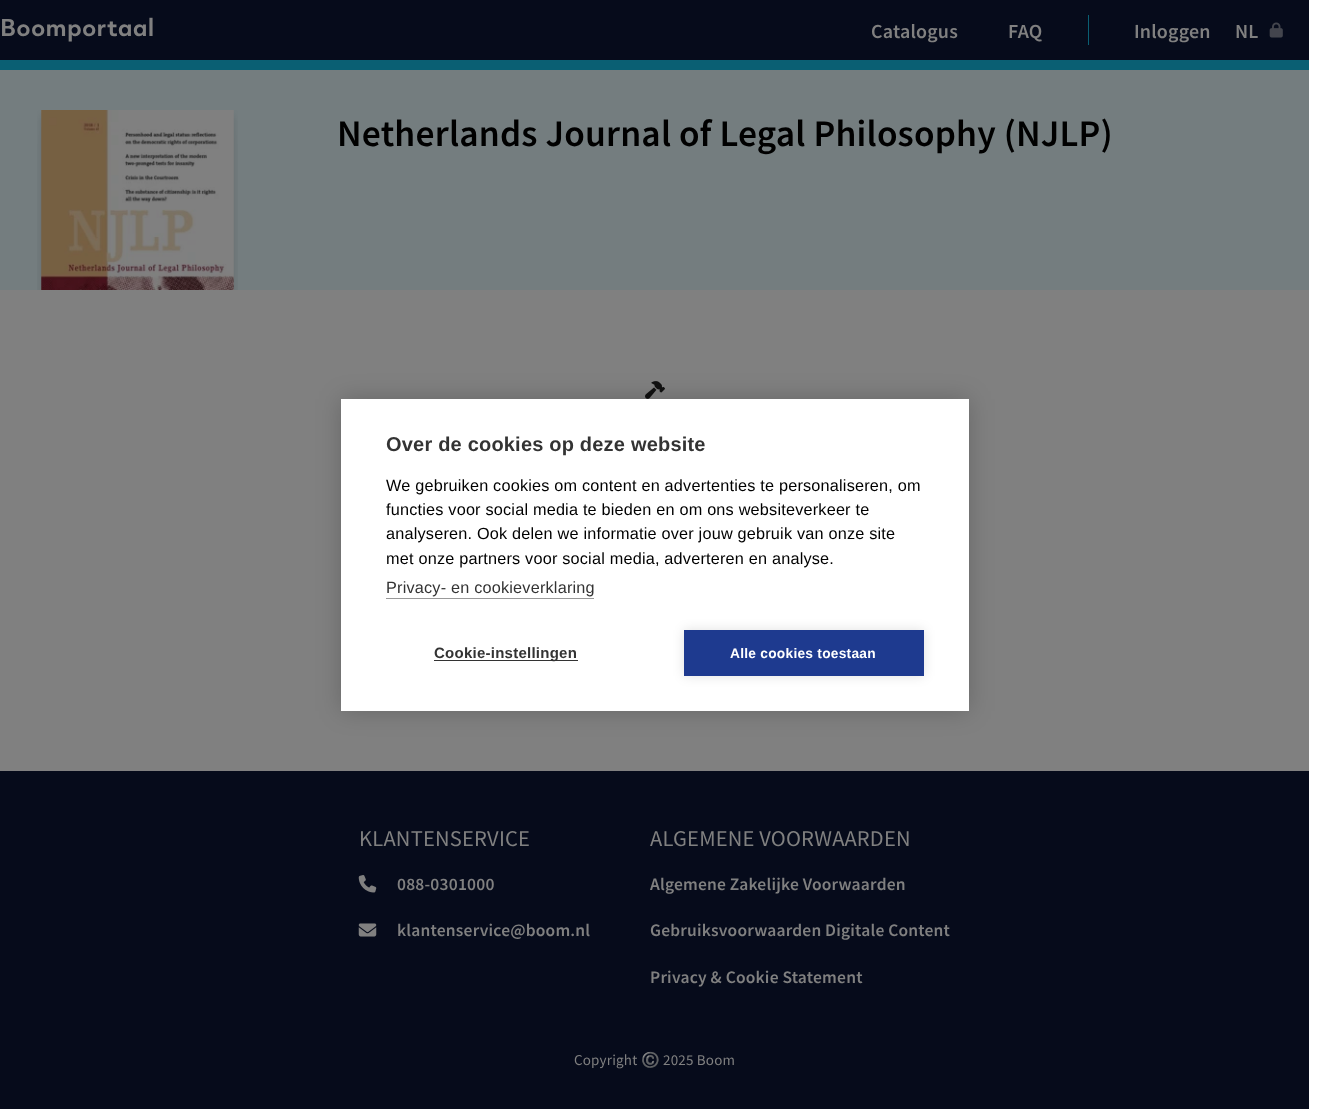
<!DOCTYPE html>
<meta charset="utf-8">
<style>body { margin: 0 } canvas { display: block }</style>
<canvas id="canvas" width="1327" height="1109"></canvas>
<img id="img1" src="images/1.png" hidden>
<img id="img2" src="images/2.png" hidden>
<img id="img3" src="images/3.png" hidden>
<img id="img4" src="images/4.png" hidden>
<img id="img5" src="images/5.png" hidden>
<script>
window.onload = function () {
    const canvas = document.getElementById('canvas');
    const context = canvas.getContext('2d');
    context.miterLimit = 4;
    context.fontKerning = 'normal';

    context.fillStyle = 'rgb(255, 255, 255)';
    context.fillRect(0, 0, 1327, 1109);
    context.fillStyle = 'rgb(128, 128, 128)';
    context.fillRect(0, 290, 1309, 481);
    context.fillStyle = 'rgb(6, 11, 27)';
    context.fillRect(0, 0, 1309, 60);
    context.fillStyle = 'rgb(10, 95, 115)';
    context.fillRect(1088, 15, 1, 30);
    context.drawImage(document.getElementById('img1'), 1269, 22, 14, 16);
    context.fillRect(0, 60, 1309, 10);
    context.fillStyle = 'rgb(116, 125, 127)';
    context.fillRect(0, 70, 1309, 220);
    context.drawImage(document.getElementById('img2'), 37, 110, 201, 180);
    context.drawImage(document.getElementById('img3'), 645, 381, 20, 18);
    context.fillStyle = 'rgb(6, 11, 27)';
    context.fillRect(0, 771, 1309, 338);
    context.drawImage(document.getElementById('img4'), 358, 875, 19, 18);
    context.drawImage(document.getElementById('img5'), 358, 923, 19, 14);
    context.fillStyle = 'rgba(0, 0, 0, 0.2)';
    context.filter = 'blur(12.5px)';
    context.beginPath();
    context.rect(341, 399, 628, 312);
    context.fill();
    context.filter = 'none';
    context.fillStyle = 'rgb(255, 255, 255)';
    context.fillRect(341, 399, 628, 312);
    context.fillStyle = 'rgb(153, 153, 153)';
    context.fillRect(386, 598, 208, 1);
    context.fillStyle = 'rgb(51, 51, 51)';
    context.fillRect(434, 660, 144, 1);
    context.fillStyle = 'rgba(0, 0, 0, 0.12)';
    context.filter = 'blur(6px)';
    context.beginPath();
    context.rect(684, 630, 240, 46);
    context.fill();
    context.filter = 'none';
    context.fillStyle = 'rgb(30, 58, 143)';
    context.fillRect(684, 630, 240, 46);
    context.letterSpacing = '0.2px';
    context.font = 'bold 22.5px "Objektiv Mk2"';
    context.fillStyle = 'rgb(128, 128, 128)';
    context.fillText('Boomportaal', 0, 36);
    context.font = '600 20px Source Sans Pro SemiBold';
    context.fillText('Catalogus', 871, 38);
    context.fillText('FAQ', 1008, 38);
    context.fillText('Inloggen', 1134, 38);
    context.fillText('NL', 1235, 38);
    context.font = '600 37.5px Source Sans Pro SemiBold';
    context.fillStyle = 'rgb(0, 0, 0)';
    context.fillText('Netherlands Journal of Legal Philosophy (NJLP)', 337, 146);
    context.font = '22.5px Source Sans Pro';
    context.fillStyle = 'rgb(128, 128, 128)';
    context.fillText('KLANTENSERVICE', 359, 846);
    context.font = '600 17.5px Source Sans Pro SemiBold';
    context.fillText('088-0301000', 397, 890);
    context.fillText('klantenservice@boom.nl', 397, 936);
    context.font = '22.5px Source Sans Pro';
    context.fillText('ALGEMENE VOORWAARDEN', 650, 846);
    context.font = '600 17.5px Source Sans Pro SemiBold';
    context.fillText('Algemene Zakelijke Voorwaarden', 650, 890);
    context.fillText('Gebruiksvoorwaarden Digitale Content', 650, 936);
    context.fillText('Privacy & Cookie Statement', 650, 983);
    context.font = '15px Source Sans Pro';
    context.fillText('Copyright', 574, 1065);
    context.font = '15px Noto Color Emoji';
    context.fillText('©️', 641, 1065);
    context.font = '15px Source Sans Pro';
    context.fillText('2025 Boom', 663, 1065);
    context.font = 'bold 20px Liberation Sans';
    context.fillStyle = 'rgb(51, 51, 51)';
    context.fillText('Over de cookies op deze website', 386, 451);
    context.font = '16.25px Liberation Sans';
    context.fillStyle = 'rgb(0, 0, 0)';
    context.fillText('We gebruiken cookies om content en advertenties te personaliseren, om', 386, 491);
    context.fillText('functies voor social media te bieden en om ons websiteverkeer te', 386, 515);
    context.fillText('analyseren. Ook delen we informatie over jouw gebruik van onze site', 386, 539);
    context.fillText('met onze partners voor social media, adverteren en analyse.', 386, 564);
    context.fillStyle = 'rgb(51, 51, 51)';
    context.fillText('Privacy- en cookieverklaring', 386, 593);
    context.letterSpacing = '0.25px';
    context.font = 'bold 15px Liberation Sans';
    context.fillText('Cookie-instellingen', 434, 658);
    context.font = 'bold 13.75px Liberation Sans';
    context.fillStyle = 'rgb(255, 255, 255)';
    context.fillText('Alle cookies toestaan', 730, 658);
};
</script>
